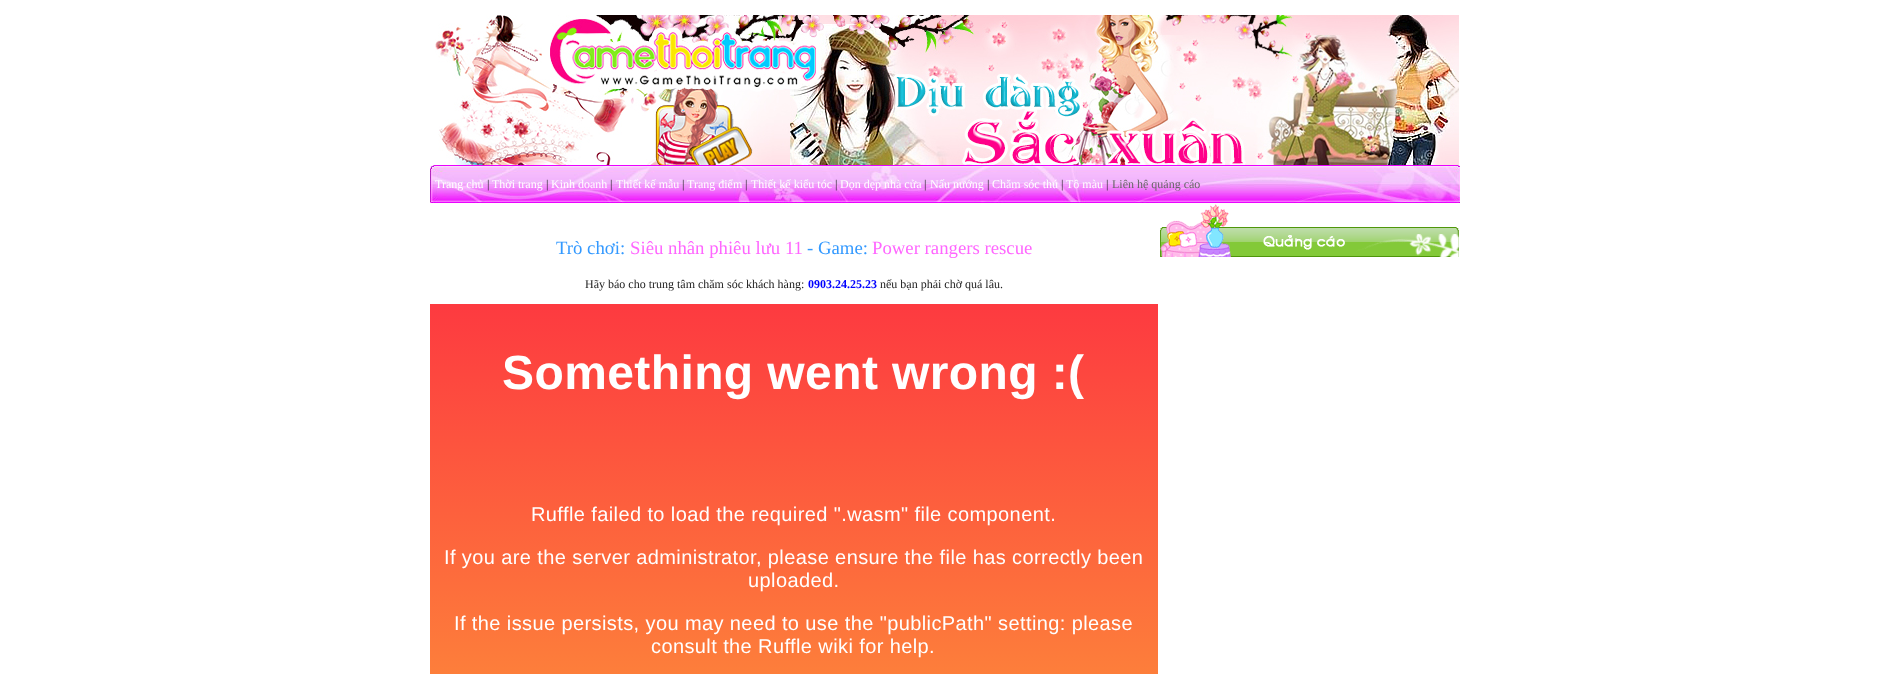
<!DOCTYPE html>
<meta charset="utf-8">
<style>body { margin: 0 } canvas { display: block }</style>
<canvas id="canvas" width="1889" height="674"></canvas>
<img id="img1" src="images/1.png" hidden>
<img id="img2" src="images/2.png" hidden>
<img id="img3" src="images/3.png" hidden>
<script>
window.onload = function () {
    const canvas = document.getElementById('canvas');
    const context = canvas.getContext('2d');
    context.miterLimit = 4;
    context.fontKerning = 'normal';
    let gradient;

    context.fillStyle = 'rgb(255, 255, 255)';
    context.fillRect(0, 0, 1889, 674);
    context.drawImage(document.getElementById('img1'), 435, 15, 1024, 150);
    context.drawImage(document.getElementById('img2'), 430, 165, 1030, 38);
    context.drawImage(document.getElementById('img3'), 1160, 204, 299, 53);
    gradient = context.createLinearGradient(794, 304, 794, 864);
    gradient.addColorStop(0, 'rgb(253, 58, 64)');
    gradient.addColorStop(1, 'rgb(253, 161, 56)');
    context.fillStyle = gradient;
    context.fillRect(430, 304, 728, 370);
    context.font = '12px Liberation Serif';
    context.fillStyle = 'rgb(255, 255, 255)';
    context.fillText('Trang chủ', 435, 188);
    context.fillStyle = 'rgb(34, 34, 34)';
    context.fillText('|', 487, 188);
    context.fillStyle = 'rgb(255, 255, 255)';
    context.fillText('Thời trang', 492, 188);
    context.fillStyle = 'rgb(34, 34, 34)';
    context.fillText('|', 546, 188);
    context.fillStyle = 'rgb(255, 255, 255)';
    context.fillText('Kinh doanh', 551, 188);
    context.fillStyle = 'rgb(34, 34, 34)';
    context.fillText('|', 610, 188);
    context.fillStyle = 'rgb(255, 255, 255)';
    context.fillText('Thiết kế mẫu', 616, 188);
    context.fillStyle = 'rgb(34, 34, 34)';
    context.fillText('|', 682, 188);
    context.fillStyle = 'rgb(255, 255, 255)';
    context.fillText('Trang điểm', 687, 188);
    context.fillStyle = 'rgb(34, 34, 34)';
    context.fillText('|', 745, 188);
    context.fillStyle = 'rgb(255, 255, 255)';
    context.fillText('Thiết kế kiểu tóc', 751, 188);
    context.fillStyle = 'rgb(34, 34, 34)';
    context.fillText('|', 835, 188);
    context.fillStyle = 'rgb(255, 255, 255)';
    context.fillText('Dọn dẹp nhà cửa', 840, 188);
    context.fillStyle = 'rgb(34, 34, 34)';
    context.fillText('|', 924, 188);
    context.fillStyle = 'rgb(255, 255, 255)';
    context.fillText('Nấu nướng', 930, 188);
    context.fillStyle = 'rgb(34, 34, 34)';
    context.fillText('|', 987, 188);
    context.fillStyle = 'rgb(255, 255, 255)';
    context.fillText('Chăm sóc thú', 992, 188);
    context.fillStyle = 'rgb(34, 34, 34)';
    context.fillText('|', 1061, 188);
    context.fillStyle = 'rgb(255, 255, 255)';
    context.fillText('Tô màu', 1066, 188);
    context.fillStyle = 'rgb(34, 34, 34)';
    context.fillText('|', 1106, 188);
    context.fillStyle = 'rgb(102, 102, 102)';
    context.fillText('Liên hệ quảng cáo', 1112, 188);
    context.font = '18.75px Liberation Serif';
    context.fillStyle = 'rgb(51, 153, 255)';
    context.fillText('Trò chơi:', 556, 254);
    context.fillStyle = 'rgb(255, 102, 255)';
    context.fillText('Siêu nhân phiêu lưu 11', 630, 254);
    context.fillStyle = 'rgb(51, 153, 255)';
    context.fillText('- Game:', 807, 254);
    context.fillStyle = 'rgb(255, 102, 255)';
    context.fillText('Power rangers rescue', 872, 254);
    context.font = '12px Liberation Serif';
    context.fillStyle = 'rgb(34, 34, 34)';
    context.fillText('Hãy báo cho trung tâm chăm sóc khách hàng:', 585, 288);
    context.font = 'bold 12px Liberation Serif';
    context.fillStyle = 'rgb(0, 0, 255)';
    context.fillText('0903.24.25.23', 808, 288);
    context.font = '12px Liberation Serif';
    context.fillStyle = 'rgb(34, 34, 34)';
    context.fillText('nếu bạn phải chờ quá lâu.', 880, 288);
    context.letterSpacing = '0.4px';
    context.font = 'bold 48px Liberation Sans';
    context.fillStyle = 'rgb(255, 255, 255)';
    context.fillText('Something went wrong :(', 502, 389);
    context.font = '20px Liberation Sans';
    context.fillText('Ruffle failed to load the required ".wasm" file component.', 531, 521);
    context.fillText('If you are the server administrator, please ensure the file has correctly been', 444, 564);
    context.fillText('uploaded.', 748, 587);
    context.fillText('If the issue persists, you may need to use the "publicPath" setting: please', 454, 630);
    context.fillText('consult the Ruffle wiki for help.', 651, 653);
};
</script>
